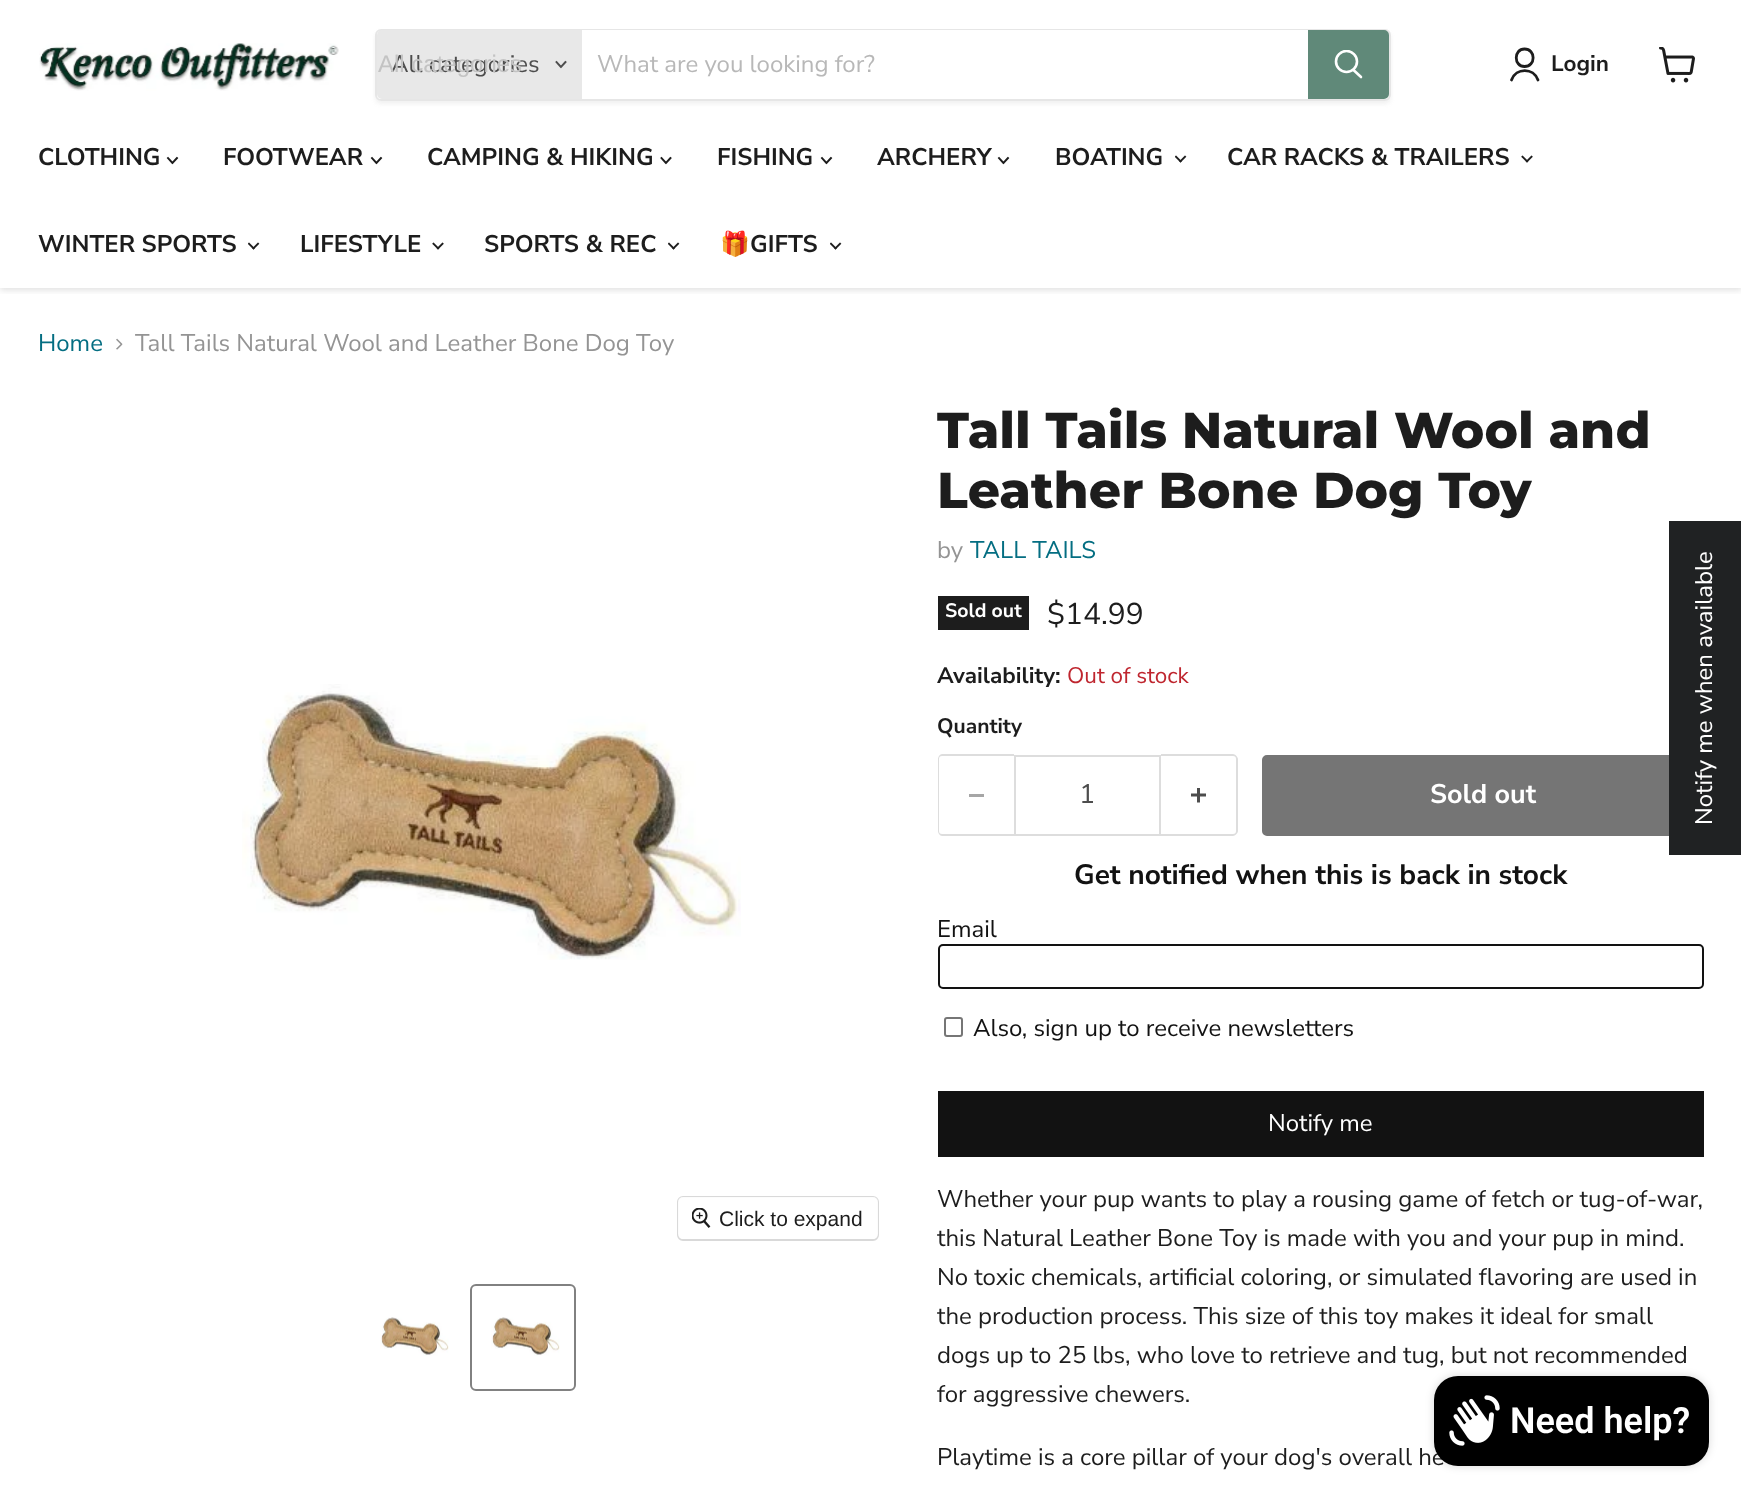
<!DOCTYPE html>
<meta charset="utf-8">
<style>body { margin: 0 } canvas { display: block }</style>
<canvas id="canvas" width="1741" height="1497"></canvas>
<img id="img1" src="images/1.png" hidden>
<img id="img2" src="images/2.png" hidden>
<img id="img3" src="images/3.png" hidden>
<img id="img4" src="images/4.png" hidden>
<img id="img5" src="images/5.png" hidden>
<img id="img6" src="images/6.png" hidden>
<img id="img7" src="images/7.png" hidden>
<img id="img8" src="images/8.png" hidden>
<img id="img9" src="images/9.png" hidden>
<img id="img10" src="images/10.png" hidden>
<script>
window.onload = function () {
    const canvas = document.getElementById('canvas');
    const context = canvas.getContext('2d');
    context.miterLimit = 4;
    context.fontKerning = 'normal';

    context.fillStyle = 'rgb(255, 255, 255)';
    context.fillRect(0, 0, 1741, 1497);
    context.save();
    context.beginPath();
    context.rect(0, 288, 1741, 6);
    context.clip();
    context.fillStyle = 'rgba(128, 128, 128, 0.25)';
    context.filter = 'blur(3px)';
    context.beginPath();
    context.rect(0, 2, 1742, 288);
    context.fill();
    context.filter = 'none';
    context.restore();
    context.drawImage(document.getElementById('img1'), 39, 43, 300, 48);
    context.save();
    context.beginPath();
    context.moveTo(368, 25);
    context.lineTo(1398, 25);
    context.lineTo(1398, 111);
    context.lineTo(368, 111);
    context.closePath();
    context.moveTo(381, 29);
    context.lineTo(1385, 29);
    context.bezierCurveTo(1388.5, 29, 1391, 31.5, 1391, 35);
    context.lineTo(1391, 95);
    context.bezierCurveTo(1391, 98.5, 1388.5, 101, 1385, 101);
    context.lineTo(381, 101);
    context.bezierCurveTo(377.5, 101, 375, 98.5, 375, 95);
    context.lineTo(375, 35);
    context.bezierCurveTo(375, 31.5, 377.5, 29, 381, 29);
    context.closePath();
    context.clip('evenodd');
    context.fillStyle = 'rgba(128, 128, 128, 0.11)';
    context.filter = 'blur(2px)';
    context.beginPath();
    context.roundRect(375, 32, 1016, 72, 6);
    context.fill();
    context.filter = 'none';
    context.restore();
    context.beginPath();
    context.roundRect(376, 30, 1014, 70, 5);
    context.strokeStyle = 'rgba(128, 128, 128, 0.2)';
    context.lineWidth = 2;
    context.stroke();
    context.fillStyle = 'rgb(232, 232, 232)';
    context.beginPath();
    context.roundRect(377, 30, 205, 69, [5, 0, 0, 5]);
    context.fill();
    context.beginPath();
    context.moveTo(561, 67);
    context.lineTo(565.5, 62);
    context.moveTo(561, 67);
    context.lineTo(556.5, 62);
    context.strokeStyle = 'rgb(77, 77, 77)';
    context.lineWidth = 1.9;
    context.lineCap = 'square';
    context.stroke();
    context.fillStyle = 'rgb(255, 255, 255)';
    context.fillRect(582, 30, 726, 1);
    context.fillStyle = 'rgb(96, 137, 121)';
    context.beginPath();
    context.roundRect(1309, 31, 79, 67, [0, 4, 4, 0]);
    context.fill();
    context.strokeStyle = 'rgb(96, 137, 121)';
    context.lineWidth = 2;
    context.stroke();
    context.beginPath();
    context.moveTo(1361, 77);
    context.lineTo(1353.5, 70);
    context.strokeStyle = 'rgb(255, 255, 255)';
    context.lineWidth = 2.6;
    context.lineCap = 'round';
    context.stroke();
    context.save();
    context.beginPath();
    context.rect(1334, 50, 30, 31);
    context.clip();
    context.beginPath();
    context.arc(1346.5, 61.5, 10.5, 0, 2 * Math.PI);
    context.stroke();
    context.restore();
    context.beginPath();
    context.moveTo(1524.5, 66.5);
    context.bezierCurveTo(1536, 66.5, 1536, 49, 1524.5, 49);
    context.bezierCurveTo(1513.5, 49, 1513.5, 66.5, 1524.5, 66.5);
    context.closePath();
    context.moveTo(1538, 80);
    context.bezierCurveTo(1533.5, 67.5, 1516, 67.5, 1511.5, 80);
    context.strokeStyle = 'rgb(29, 29, 29)';
    context.lineWidth = 2.8;
    context.lineJoin = 'round';
    context.stroke();
    context.drawImage(document.getElementById('img2'), 1659, 47, 36, 36);
    context.beginPath();
    context.moveTo(172.5, 163);
    context.lineTo(177, 158);
    context.moveTo(172.5, 163);
    context.lineTo(168, 158);
    context.lineWidth = 1.9;
    context.lineCap = 'square';
    context.lineJoin = 'miter';
    context.stroke();
    context.beginPath();
    context.moveTo(376.5, 163);
    context.lineTo(381, 158);
    context.moveTo(376.5, 163);
    context.lineTo(372, 158);
    context.stroke();
    context.beginPath();
    context.moveTo(666, 163);
    context.lineTo(670.5, 158);
    context.moveTo(666, 163);
    context.lineTo(661.5, 158);
    context.stroke();
    context.beginPath();
    context.moveTo(826.5, 163);
    context.lineTo(831, 158);
    context.moveTo(826.5, 163);
    context.lineTo(822, 158);
    context.stroke();
    context.beginPath();
    context.moveTo(1003.5, 163);
    context.lineTo(1008, 158);
    context.moveTo(1003.5, 163);
    context.lineTo(999, 158);
    context.stroke();
    context.drawImage(document.getElementById('img3'), 1175, 155, 12, 8);
    context.drawImage(document.getElementById('img4'), 1521, 155, 12, 8);
    context.drawImage(document.getElementById('img3'), 248, 242, 12, 8);
    context.drawImage(document.getElementById('img4'), 432, 242, 12, 8);
    context.drawImage(document.getElementById('img3'), 668, 242, 12, 8);
    context.drawImage(document.getElementById('img3'), 830, 242, 12, 8);
    context.drawImage(document.getElementById('img5'), 116, 338, 7, 12);
    context.drawImage(document.getElementById('img6'), 242, 684, 499, 276);
    context.beginPath();
    context.roundRect(678, 1197, 200, 43, 5);
    context.strokeStyle = 'rgb(217, 217, 217)';
    context.lineWidth = 2;
    context.stroke();
    context.fillStyle = 'rgba(255, 255, 255, 0.9)';
    context.beginPath();
    context.roundRect(678, 1197, 200, 42, 5);
    context.fill();
    context.drawImage(document.getElementById('img7'), 692, 1208, 19, 20);
    context.drawImage(document.getElementById('img8'), 380, 1317, 69, 39);
    context.beginPath();
    context.roundRect(471, 1285, 104, 105, 5);
    context.strokeStyle = 'rgb(129, 129, 129)';
    context.stroke();
    context.drawImage(document.getElementById('img8'), 491, 1317, 69, 39);
    context.fillStyle = 'rgb(29, 29, 29)';
    context.fillRect(938, 596, 91, 34);
    context.fillStyle = 'rgb(221, 221, 221)';
    context.beginPath();
    context.moveTo(942, 754);
    context.lineTo(1014, 754);
    context.lineTo(1014, 836);
    context.lineTo(942, 836);
    context.bezierCurveTo(940, 836, 938, 833, 938, 831);
    context.lineTo(938, 759);
    context.bezierCurveTo(938, 757, 940, 754, 942, 754);
    context.closePath();
    context.moveTo(942, 756);
    context.lineTo(1014, 756);
    context.lineTo(1014, 834);
    context.lineTo(942, 834);
    context.bezierCurveTo(940, 834, 939, 833, 939, 831);
    context.lineTo(939, 759);
    context.bezierCurveTo(939, 757, 940, 756, 942, 756);
    context.closePath();
    context.fill('evenodd');
    context.fillStyle = 'rgb(166, 166, 166)';
    context.fillRect(969, 794, 15, 3);
    context.strokeStyle = 'rgb(221, 221, 221)';
    context.strokeRect(1015, 756, 145, 79);
    context.fillStyle = 'rgb(221, 221, 221)';
    context.beginPath();
    context.moveTo(1161, 754);
    context.lineTo(1233, 754);
    context.bezierCurveTo(1235, 754, 1238, 757, 1238, 759);
    context.lineTo(1238, 831);
    context.bezierCurveTo(1238, 833, 1235, 836, 1233, 836);
    context.lineTo(1161, 836);
    context.closePath();
    context.moveTo(1161, 756);
    context.lineTo(1233, 756);
    context.bezierCurveTo(1235, 756, 1236, 757, 1236, 759);
    context.lineTo(1236, 831);
    context.bezierCurveTo(1236, 833, 1235, 834, 1233, 834);
    context.lineTo(1161, 834);
    context.closePath();
    context.fill('evenodd');
    context.drawImage(document.getElementById('img9'), 1191, 788, 15, 15);
    context.fillStyle = 'rgb(117, 117, 117)';
    context.beginPath();
    context.roundRect(1263, 756, 440, 79, 4);
    context.fill();
    context.strokeStyle = 'rgb(117, 117, 117)';
    context.stroke();
    context.beginPath();
    context.roundRect(939, 945, 764, 43, 4);
    context.strokeStyle = 'rgb(18, 18, 18)';
    context.stroke();
    context.beginPath();
    context.roundRect(945, 1018, 17, 18, 2);
    context.strokeStyle = 'rgb(118, 118, 118)';
    context.stroke();
    context.fillStyle = 'rgb(18, 18, 18)';
    context.fillRect(938, 1091, 766, 66);
    context.fillStyle = 'rgb(32, 34, 35)';
    context.fillRect(1669, 521, 72, 334);
    context.fillStyle = 'rgba(0, 0, 0, 0.15)';
    context.filter = 'blur(4px)';
    context.beginPath();
    context.roundRect(1434, 1376, 275, 90, 24);
    context.fill();
    context.filter = 'none';
    context.font = '24px Nunito Sans';
    context.fillStyle = 'rgb(77, 77, 77)';
    context.fillText('All categories', 391, 72);
    context.font = '24px Liberation Sans';
    context.fillStyle = 'rgb(195, 195, 195)';
    context.fillText('All categories', 378, 72);
    context.font = '24px Nunito Sans';
    context.fillStyle = 'rgb(184, 184, 184)';
    context.fillText('What are you looking for?', 597, 72);
    context.font = 'bold 22.5px Nunito Sans';
    context.fillStyle = 'rgb(29, 29, 29)';
    context.fillText('Login', 1551, 71);
    context.font = 'bold 24px Nunito Sans';
    context.fillText('CLOTHING', 38, 165);
    context.fillText('FOOTWEAR', 223, 165);
    context.fillText('CAMPING & HIKING', 427, 165);
    context.fillText('FISHING', 717, 165);
    context.fillText('ARCHERY', 877, 165);
    context.fillText('BOATING', 1055, 165);
    context.fillText('CAR RACKS & TRAILERS', 1227, 165);
    context.fillText('WINTER SPORTS', 38, 252);
    context.fillText('LIFESTYLE', 300, 252);
    context.fillText('SPORTS & REC', 484, 252);
    context.font = 'bold 24px Noto Color Emoji';
    context.fillText('🎁', 720, 252);
    context.font = 'bold 24px Nunito Sans';
    context.fillText('GIFTS', 750, 252);
    context.font = '24px Nunito Sans';
    context.fillStyle = 'rgb(4, 110, 130)';
    context.fillText('Home', 38, 351);
    context.fillStyle = 'rgb(148, 148, 148)';
    context.fillText('Tall Tails Natural Wool and Leather Bone Dog Toy', 135, 351);
    context.font = '21px Liberation Sans';
    context.fillStyle = 'rgb(29, 29, 29)';
    context.fillText('Click to expand', 719, 1226);
    context.font = '800 50.4px Montserrat';
    context.fillText('Tall Tails Natural Wool and', 937, 448);
    context.fillText('Leather Bone Dog Toy', 937, 508);
    context.font = '24px Nunito Sans';
    context.fillStyle = 'rgb(148, 148, 148)';
    context.fillText('by', 937, 558);
    context.fillStyle = 'rgb(4, 110, 130)';
    context.fillText('TALL TAILS', 970, 558);
    context.font = 'bold 19.5px Nunito Sans';
    context.fillStyle = 'rgb(255, 255, 255)';
    context.fillText('Sold out', 945, 617);
    context.font = '30px Nunito Sans';
    context.fillStyle = 'rgb(29, 29, 29)';
    context.fillText('$14.99', 1047, 624);
    context.font = 'bold 22.5px Nunito Sans';
    context.fillText('Availability:', 937, 683);
    context.font = '22.5px Nunito Sans';
    context.fillStyle = 'rgb(191, 38, 47)';
    context.fillText('Out of stock', 1067, 683);
    context.font = 'bold 21px Nunito Sans';
    context.fillStyle = 'rgb(29, 29, 29)';
    context.fillText('Quantity', 937, 733);
    context.font = '27px Nunito Sans';
    context.fillStyle = 'rgb(77, 77, 77)';
    context.fillText('1', 1079, 803);
    context.font = 'bold 27px Nunito Sans';
    context.fillStyle = 'rgb(255, 255, 255)';
    context.fillText('Sold out', 1430, 803);
    context.font = 'bold 28.1px Nunito Sans';
    context.fillStyle = 'rgb(18, 18, 18)';
    context.fillText('Get notified when this is back in stock', 1074, 884);
    context.font = '24px Nunito Sans';
    context.fillText('Email', 937, 937);
    context.fillText('Also, sign up to receive newsletters', 973, 1036);
    context.fillStyle = 'rgb(255, 255, 255)';
    context.fillText('Notify me', 1268, 1131);
    context.fillStyle = 'rgb(29, 29, 29)';
    context.fillText('Whether your pup wants to play a rousing game of fetch or tug-of-war,', 937, 1207);
    context.fillText('this Natural Leather Bone Toy is made with you and your pup in mind.', 937, 1246);
    context.fillText('No toxic chemicals, artificial coloring, or simulated flavoring are used in', 937, 1285);
    context.fillText('the production process. This size of this toy makes it ideal for small', 937, 1324);
    context.fillText('dogs up to 25 lbs, who love to retrieve and tug, but not recommended', 937, 1363);
    context.fillText('for aggressive chewers.', 937, 1402);
    context.fillText('Playtime is a core pillar of your dog\'s overall he', 937, 1465);
    context.fillStyle = 'rgb(255, 255, 255)';
    context.save();
    context.translate(1712, 825);
    context.rotate(-90 * Math.PI / 180);
    context.fillText('Notify me when available', 0, 0);
    context.restore();
    context.fillStyle = 'rgb(0, 0, 0)';
    context.beginPath();
    context.roundRect(1434, 1376, 275, 90, 24);
    context.fill();
    context.drawImage(document.getElementById('img10'), 1449, 1395, 51, 51);
    context.font = '600 36px Roboto';
    context.fillStyle = 'rgb(255, 255, 255)';
    context.fillText('Need help?', 1510, 1433);
};
</script>
